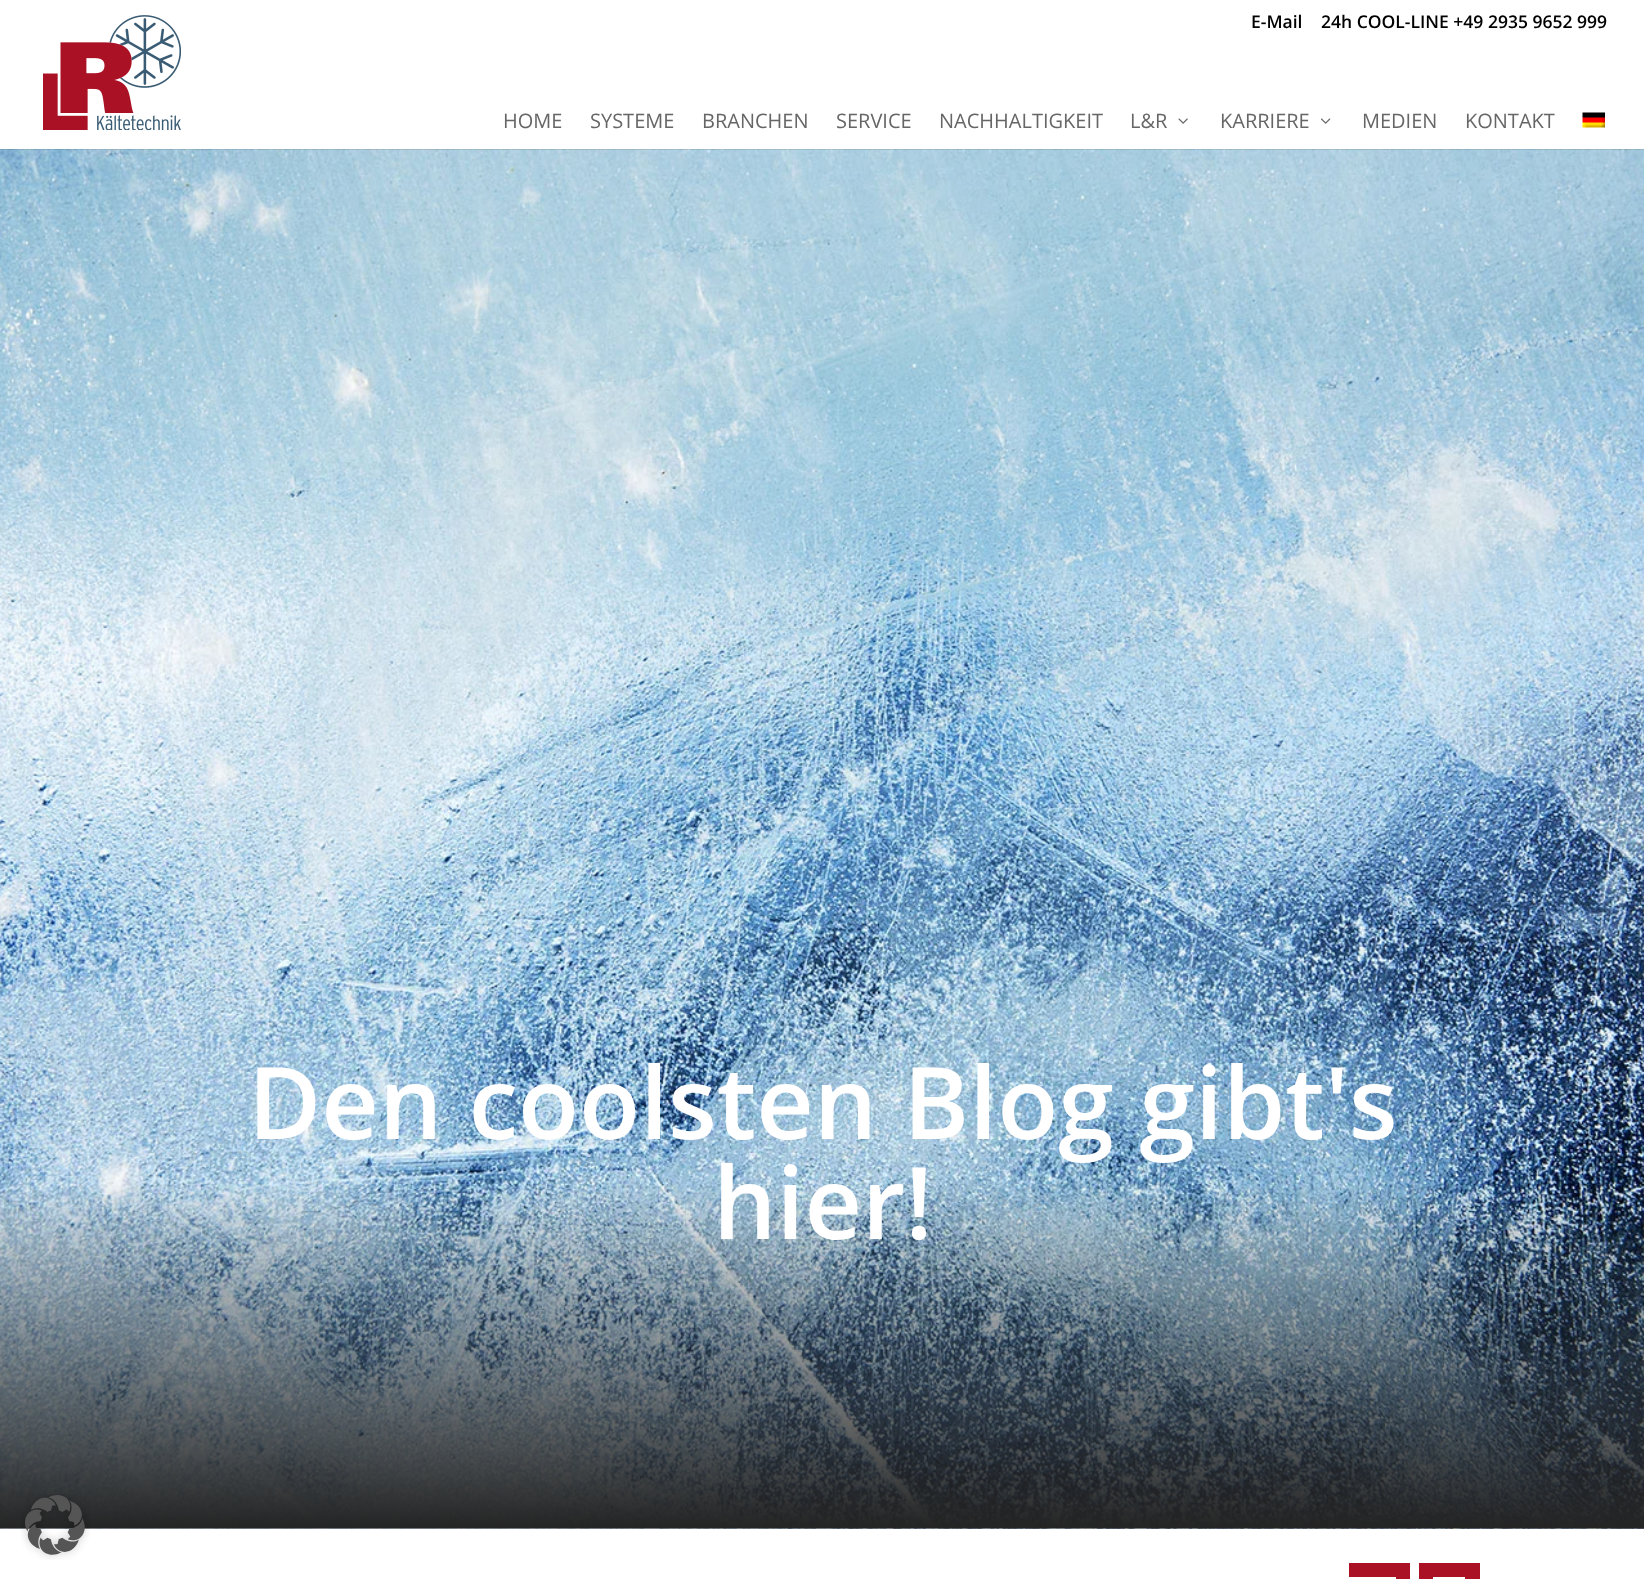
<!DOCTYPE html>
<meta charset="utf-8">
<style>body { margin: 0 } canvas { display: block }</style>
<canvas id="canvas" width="1644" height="1579"></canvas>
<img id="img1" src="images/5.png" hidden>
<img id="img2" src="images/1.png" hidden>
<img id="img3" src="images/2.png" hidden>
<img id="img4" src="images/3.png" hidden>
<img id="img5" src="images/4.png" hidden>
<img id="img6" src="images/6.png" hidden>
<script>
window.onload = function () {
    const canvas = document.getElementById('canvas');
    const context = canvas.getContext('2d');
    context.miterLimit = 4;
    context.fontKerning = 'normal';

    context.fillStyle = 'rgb(255, 255, 255)';
    context.fillRect(0, 0, 1644, 1579);
    context.drawImage(document.getElementById('img1'), 0, 149, 1644, 1380);
    context.fillStyle = 'rgba(0, 0, 0, 0.1)';
    context.fillRect(0, 149, 1644, 1);
    context.drawImage(document.getElementById('img2'), 43, 15, 138, 115);
    context.drawImage(document.getElementById('img3'), 1178, 118, 10, 6);
    context.drawImage(document.getElementById('img4'), 1321, 118, 10, 6);
    context.drawImage(document.getElementById('img5'), 1582, 112, 23, 16);
    context.save();
    context.beginPath();
    context.rect(1349, 1563, 131, 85);
    context.clip();
    context.fillStyle = 'rgb(170, 17, 36)';
    context.beginPath();
    context.moveTo(1396, 1562);
    context.lineTo(1349, 1562);
    context.lineTo(1349, 1577);
    context.lineTo(1396, 1577);
    context.lineTo(1396, 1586);
    context.lineTo(1349, 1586);
    context.lineTo(1349, 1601);
    context.lineTo(1396, 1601);
    context.lineTo(1396, 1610);
    context.lineTo(1349, 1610);
    context.lineTo(1349, 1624);
    context.lineTo(1410, 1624);
    context.lineTo(1410, 1562);
    context.closePath();
    context.fill();
    context.beginPath();
    context.moveTo(1480, 1562);
    context.lineTo(1419, 1562);
    context.lineTo(1419, 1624);
    context.lineTo(1480, 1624);
    context.closePath();
    context.moveTo(1433, 1577);
    context.lineTo(1465, 1577);
    context.lineTo(1465, 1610);
    context.lineTo(1433, 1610);
    context.closePath();
    context.fill();
    context.restore();
    context.drawImage(document.getElementById('img6'), 21, 1494, 69, 66);
    context.font = '600 17.5px Open Sans';
    context.fillStyle = 'rgb(0, 0, 0)';
    context.fillText('E-Mail', 1251, 28);
    context.fillText('24h COOL-LINE +49 2935 9652 999', 1321, 28);
    context.font = '20px Open Sans';
    context.fillStyle = 'rgb(102, 102, 102)';
    context.fillText('HOME', 503, 128);
    context.fillText('SYSTEME', 590, 128);
    context.fillText('BRANCHEN', 702, 128);
    context.fillText('SERVICE', 836, 128);
    context.fillText('NACHHALTIGKEIT', 939, 128);
    context.fillText('L&R', 1130, 128);
    context.fillText('KARRIERE', 1220, 128);
    context.fillText('MEDIEN', 1362, 128);
    context.fillText('KONTAKT', 1465, 128);
    context.font = '600 100px Open Sans';
    context.fillStyle = 'rgb(255, 255, 255)';
    context.fillText('Den coolsten Blog gibt\'s', 248, 1139);
    context.fillText('hier!', 713, 1239);
};
</script>
